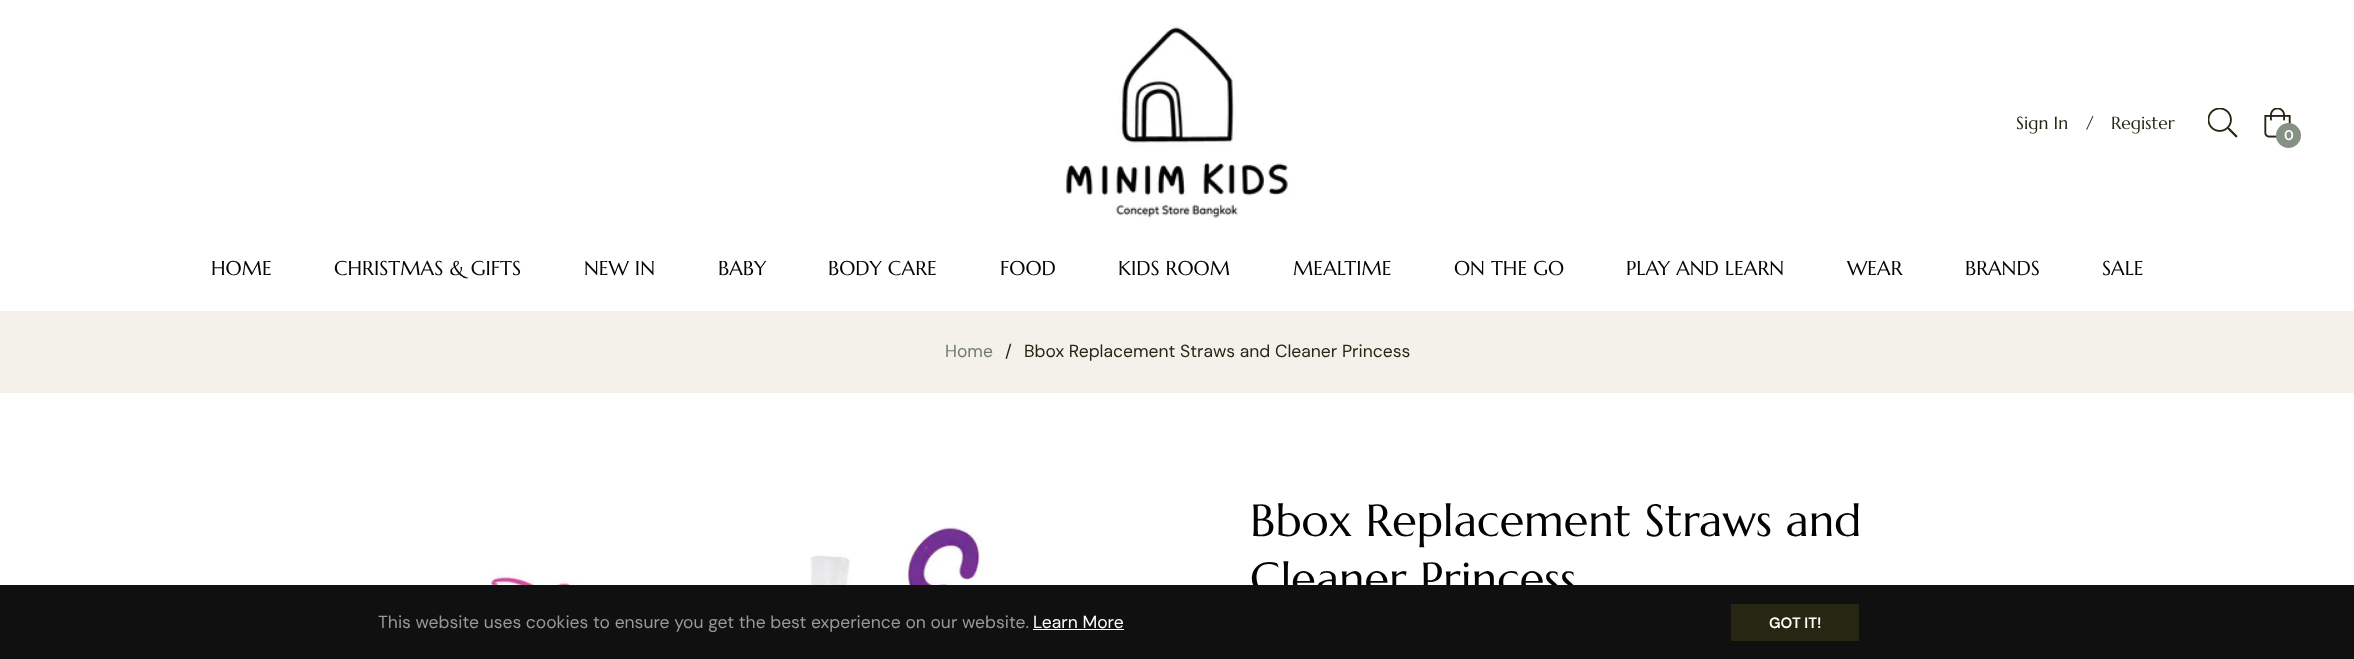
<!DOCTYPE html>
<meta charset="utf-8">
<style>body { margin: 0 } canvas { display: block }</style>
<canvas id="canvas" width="2354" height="659"></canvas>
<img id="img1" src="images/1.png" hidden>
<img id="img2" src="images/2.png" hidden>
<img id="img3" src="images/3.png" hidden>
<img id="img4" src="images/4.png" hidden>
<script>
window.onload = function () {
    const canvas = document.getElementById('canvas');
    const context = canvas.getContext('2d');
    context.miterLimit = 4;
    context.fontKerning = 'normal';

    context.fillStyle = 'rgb(255, 255, 255)';
    context.fillRect(0, 0, 2354, 659);
    context.drawImage(document.getElementById('img1'), 1064, 25, 225, 195);
    context.drawImage(document.getElementById('img2'), 2208, 108, 30, 30);
    context.drawImage(document.getElementById('img3'), 2264, 108, 27, 30);
    context.fillStyle = 'rgb(133, 145, 130)';
    context.beginPath();
    context.arc(2288.5, 135.5, 12.5, 0, 2 * Math.PI);
    context.fill();
    context.fillStyle = 'rgb(244, 241, 235)';
    context.fillRect(0, 311, 2354, 82);
    context.drawImage(document.getElementById('img4'), 412, 527, 681, 58);
    context.font = '17.5px Marcellus';
    context.fillStyle = 'rgb(38, 38, 19)';
    context.fillText('Sign In', 2016, 129);
    context.fillText('/', 2086, 129);
    context.fillText('Register', 2111, 129);
    context.font = '600 14px DM Sans';
    context.fillStyle = 'rgb(255, 255, 255)';
    context.fillText('0', 2284, 140);
    context.font = '20px Marcellus';
    context.fillStyle = 'rgb(3, 3, 3)';
    context.fillText('HOME', 211, 275);
    context.fillText('CHRISTMAS & GIFTS', 334, 275);
    context.fillText('NEW IN', 584, 275);
    context.fillText('BABY', 718, 275);
    context.fillText('BODY CARE', 828, 275);
    context.fillText('FOOD', 1000, 275);
    context.fillText('KIDS ROOM', 1118, 275);
    context.fillText('MEALTIME', 1293, 275);
    context.fillText('ON THE GO', 1454, 275);
    context.fillText('PLAY AND LEARN', 1626, 275);
    context.fillText('WEAR', 1847, 275);
    context.fillText('BRANDS', 1965, 275);
    context.fillText('SALE', 2102, 275);
    context.font = '17.5px DM Sans';
    context.fillStyle = 'rgb(111, 122, 108)';
    context.fillText('Home', 945, 357);
    context.fillStyle = 'rgb(38, 38, 19)';
    context.fillText('/', 1005, 357);
    context.fillText('Bbox Replacement Straws and Cleaner Princess', 1024, 357);
    context.font = '45px Marcellus';
    context.fillStyle = 'rgb(3, 3, 3)';
    context.fillText('Bbox Replacement Straws and', 1250, 536);
    context.fillText('Cleaner Princess', 1250, 594);
    context.fillStyle = 'rgb(16, 16, 16)';
    context.fillRect(0, 585, 2354, 74);
    context.font = '17.5px DM Sans';
    context.fillStyle = 'rgb(153, 153, 153)';
    context.fillText('This website uses cookies to ensure you get the best experience on our website.', 378, 628);
    context.fillStyle = 'rgb(255, 255, 255)';
    context.fillText('Learn More', 1033, 628);
    context.fillRect(1033, 629, 91, 1);
    context.fillStyle = 'rgb(38, 38, 19)';
    context.fillRect(1731, 604, 128, 37);
    context.font = '600 15px DM Sans';
    context.fillStyle = 'rgb(255, 255, 255)';
    context.fillText('GOT IT!', 1769, 628);
};
</script>
